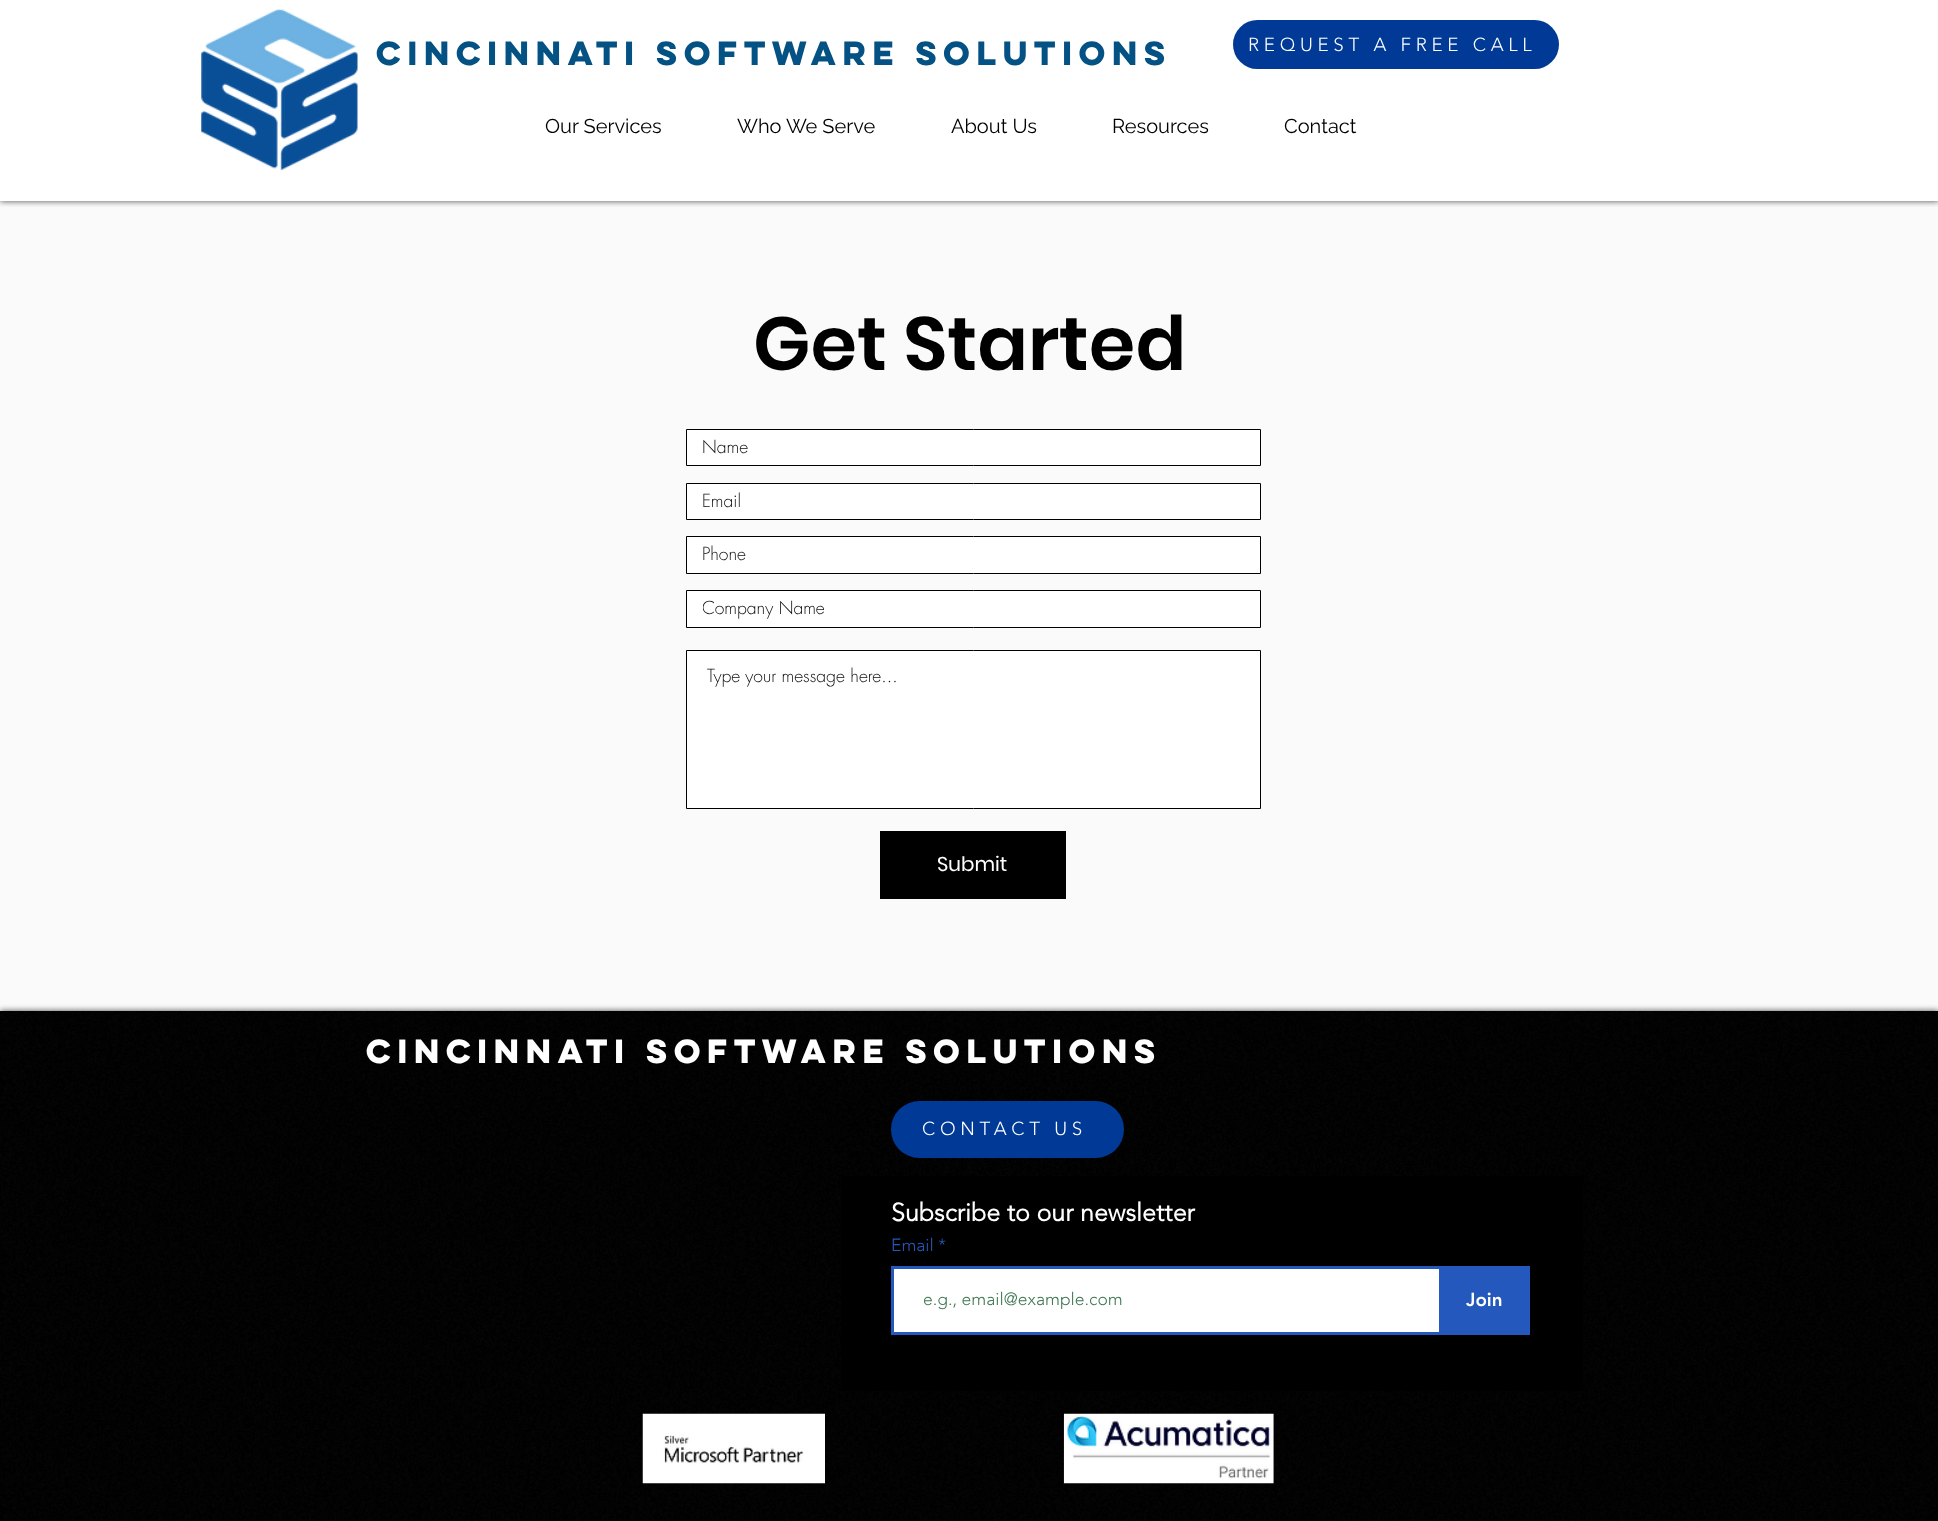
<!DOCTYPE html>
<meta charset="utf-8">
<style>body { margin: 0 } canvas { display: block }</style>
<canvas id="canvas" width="1938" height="1521"></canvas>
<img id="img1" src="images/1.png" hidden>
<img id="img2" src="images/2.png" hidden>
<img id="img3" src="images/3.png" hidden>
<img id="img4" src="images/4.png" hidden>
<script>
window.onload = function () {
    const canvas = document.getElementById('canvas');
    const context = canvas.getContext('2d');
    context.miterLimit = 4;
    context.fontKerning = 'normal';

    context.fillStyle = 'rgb(250, 250, 250)';
    context.fillRect(0, 0, 1938, 1521);
    context.fillStyle = 'rgb(255, 255, 255)';
    context.fillRect(0, 0, 1938, 201);
    context.save();
    context.beginPath();
    context.rect(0, 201, 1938, 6);
    context.clip();
    context.fillStyle = 'rgba(0, 0, 0, 0.7)';
    context.filter = 'blur(3px)';
    context.beginPath();
    context.rect(0, 0, 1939, 201);
    context.fill();
    context.filter = 'none';
    context.restore();
    context.drawImage(document.getElementById('img1'), 201, 9, 157, 161);
    context.fillStyle = 'rgb(0, 58, 150)';
    context.beginPath();
    context.roundRect(1233, 20, 326, 49, 24.5);
    context.fill();
    context.fillStyle = 'rgb(255, 255, 255)';
    context.beginPath();
    context.rect(686.5, 429.5, 574, 36);
    context.fill();
    context.strokeStyle = 'rgb(0, 0, 0)';
    context.stroke();
    context.beginPath();
    context.rect(686.5, 483.5, 574, 36);
    context.fill();
    context.stroke();
    context.beginPath();
    context.rect(686.5, 536.5, 574, 37);
    context.fill();
    context.stroke();
    context.beginPath();
    context.rect(686.5, 590.5, 574, 37);
    context.fill();
    context.stroke();
    context.beginPath();
    context.rect(686.5, 650.5, 574, 158);
    context.fill();
    context.stroke();
    context.fillStyle = 'rgb(0, 0, 0)';
    context.fillRect(880, 831, 186, 68);
    context.fillStyle = 'rgba(0, 0, 0, 0.7)';
    context.filter = 'blur(3px)';
    context.beginPath();
    context.rect(0, 1011, 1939, 510);
    context.fill();
    context.filter = 'none';
    context.fillStyle = 'rgb(0, 0, 0)';
    context.fillRect(0, 1011, 1938, 510);
    context.drawImage(document.getElementById('img2'), 0, 1011, 1938, 510);
    context.fillStyle = 'rgb(0, 58, 150)';
    context.beginPath();
    context.roundRect(891, 1101, 233, 57, 28.5);
    context.fill();
    context.fillStyle = 'rgb(0, 0, 0)';
    context.fillRect(841, 1176, 742, 215);
    context.fillStyle = 'rgb(255, 255, 255)';
    context.fillRect(894, 1269, 545, 63);
    context.strokeStyle = 'rgb(37, 88, 189)';
    context.lineWidth = 3;
    context.strokeRect(892.5, 1267.5, 552, 66);
    context.fillStyle = 'rgb(37, 88, 189)';
    context.fillRect(1439, 1266, 91, 69);
    context.drawImage(document.getElementById('img3'), 642, 1413, 183, 71);
    context.drawImage(document.getElementById('img4'), 1063, 1413, 211, 71);
    context.font = 'bold 30px "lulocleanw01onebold"';
    context.fillStyle = 'rgb(4, 81, 132)';
    context.fillText('Cincinnati Software solutions', 376, 65);
    context.letterSpacing = '4.7px';
    context.font = '300 18.75px "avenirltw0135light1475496"';
    context.fillStyle = 'rgb(255, 255, 255)';
    context.fillText('REQUEST A FREE CALL', 1248, 51);
    context.letterSpacing = '0px';
    context.font = '20px Raleway';
    context.fillStyle = 'rgb(0, 0, 0)';
    context.fillText('Our Services', 545, 133);
    context.fillText('Who We Serve', 737, 133);
    context.fillText('About Us', 951, 133);
    context.fillText('Resources', 1112, 133);
    context.fillText('Contact', 1284, 133);
    context.font = '600 75px Poppins';
    context.fillText('Get Started', 753, 370);
    context.font = '300 17.5px futura';
    context.fillStyle = 'rgb(15, 15, 15)';
    context.fillText('Name', 702, 453);
    context.fillText('Email', 702, 507);
    context.fillText('Phone', 702, 560);
    context.save();
    context.beginPath();
    context.rect(703, 596, 553, 23);
    context.clip();
    context.fillText('Company Name', 702, 614);
    context.restore();
    context.fillText('Type your message here...', 707, 682);
    context.font = '20px Poppins';
    context.fillStyle = 'rgb(255, 255, 255)';
    context.fillText('Submit', 937, 871);
    context.font = 'bold 30px "lulocleanw01onebold"';
    context.fillText('Cincinnati Software solutions', 366, 1063);
    context.letterSpacing = '4.7px';
    context.font = '300 18.75px "avenirltw0135light1475496"';
    context.fillText('CONTACT US', 922, 1135);
    context.letterSpacing = '0px';
    context.font = 'bold 25px "avenirltw0135light1475496"';
    context.fillText('Subscribe to our newsletter', 891, 1221);
    context.font = '300 17.5px "avenirltw0135light1475496"';
    context.fillStyle = 'rgb(37, 88, 189)';
    context.fillText('Email *', 891, 1251);
    context.fillStyle = 'rgb(63, 118, 82)';
    context.fillText('e.g., email@example.com', 923, 1305);
    context.font = '900 18.75px "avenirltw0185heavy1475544"';
    context.fillStyle = 'rgb(255, 255, 255)';
    context.fillText('Join', 1466, 1306);
};
</script>
